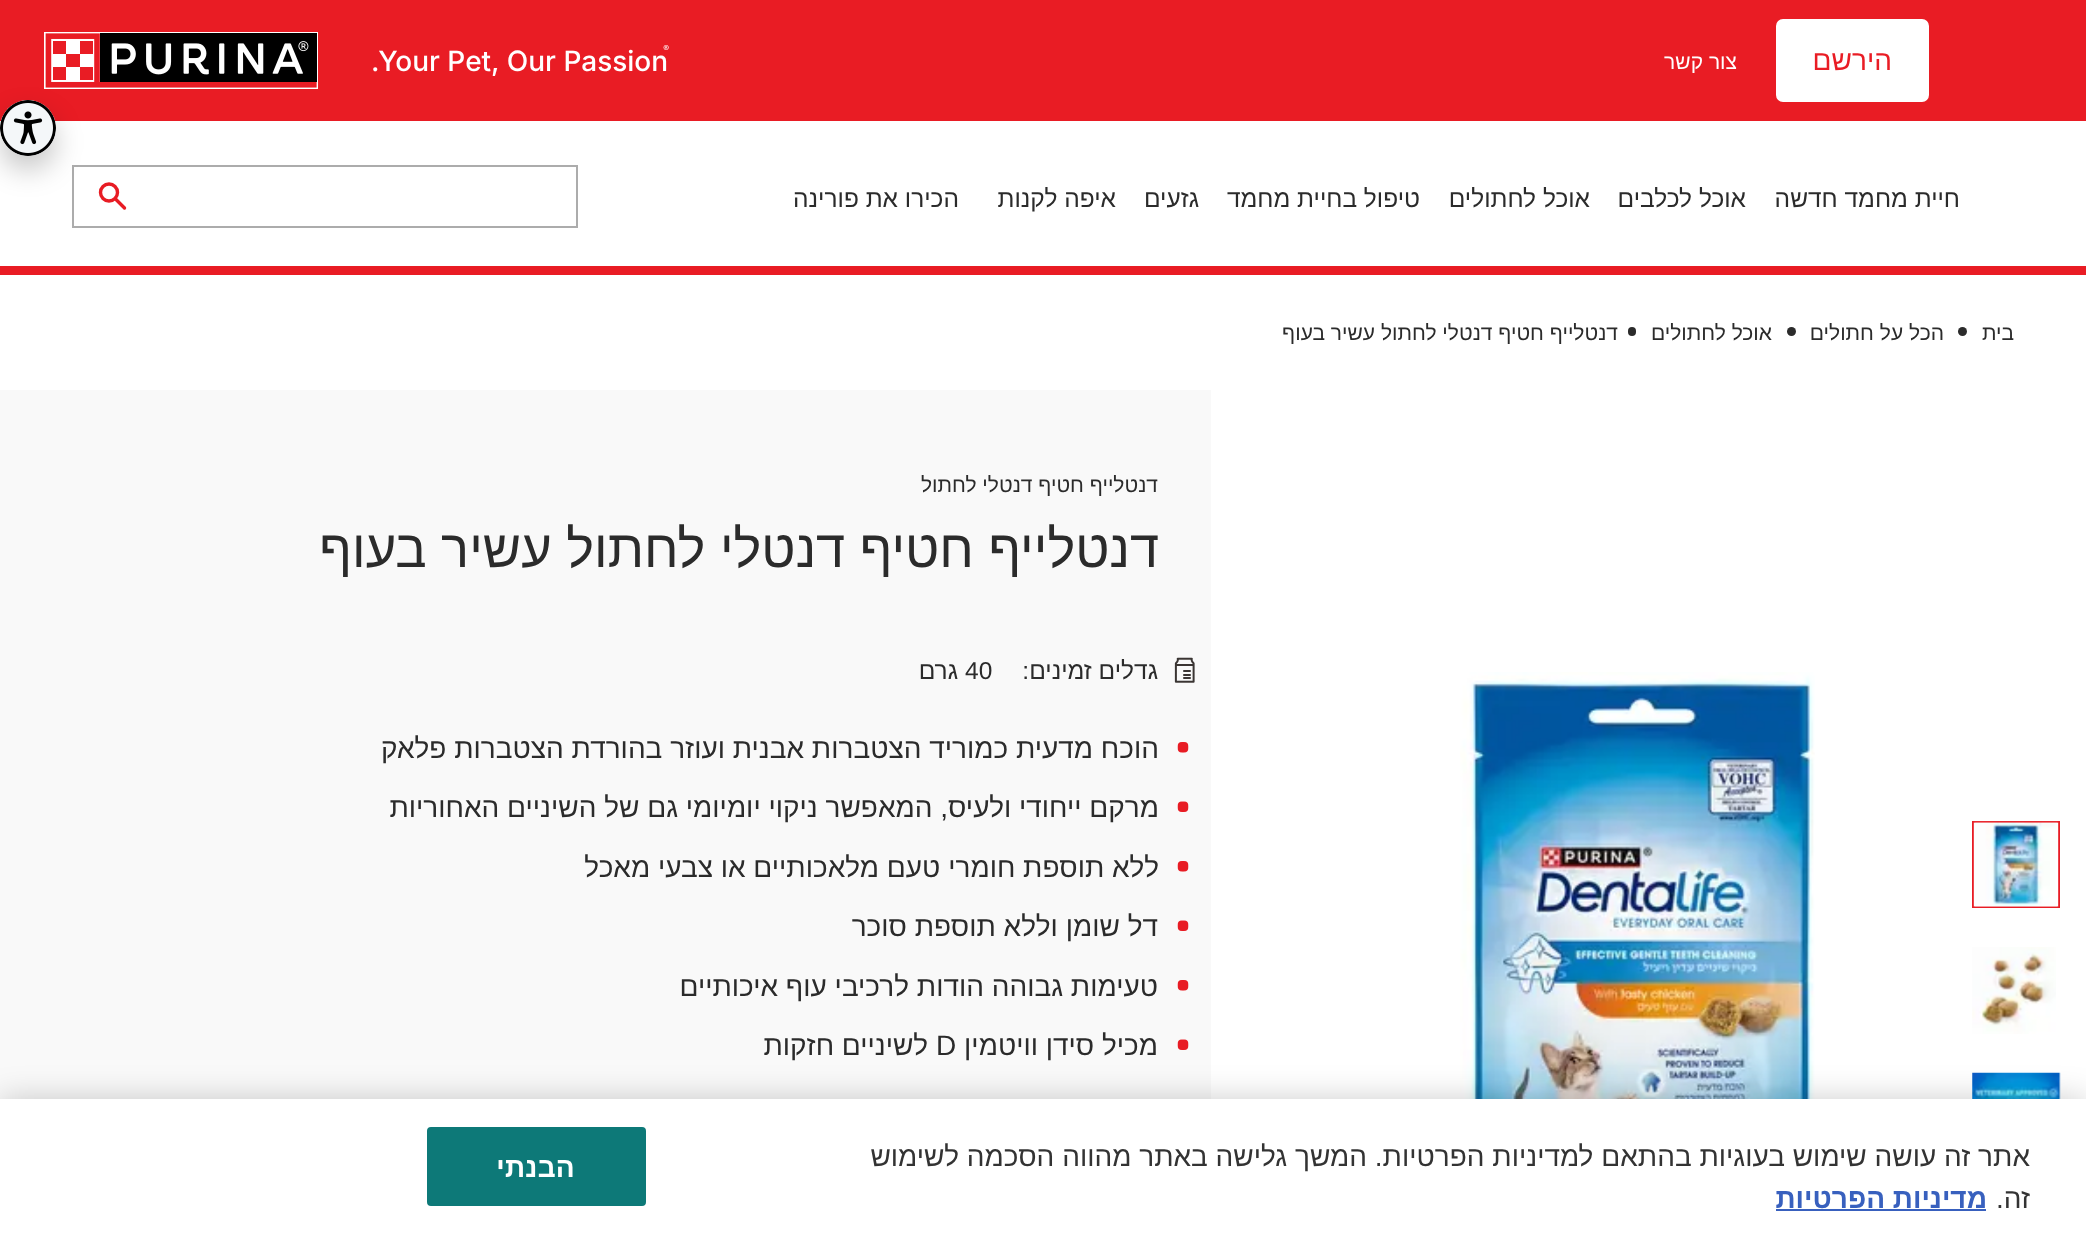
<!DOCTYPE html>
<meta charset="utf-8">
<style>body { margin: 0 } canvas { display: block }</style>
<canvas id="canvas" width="2086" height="1234"></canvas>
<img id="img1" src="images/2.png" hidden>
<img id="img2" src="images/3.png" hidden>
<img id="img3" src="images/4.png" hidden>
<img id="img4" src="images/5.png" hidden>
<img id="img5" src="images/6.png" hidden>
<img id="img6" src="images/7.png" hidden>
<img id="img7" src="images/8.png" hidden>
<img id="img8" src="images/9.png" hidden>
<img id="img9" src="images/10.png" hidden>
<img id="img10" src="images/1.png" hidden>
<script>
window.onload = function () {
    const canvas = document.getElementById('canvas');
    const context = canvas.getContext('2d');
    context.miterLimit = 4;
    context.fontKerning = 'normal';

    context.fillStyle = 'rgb(255, 255, 255)';
    context.fillRect(0, 0, 2086, 1234);
    context.fillStyle = 'rgb(233, 28, 36)';
    context.fillRect(0, 0, 2086, 121);
    context.fillStyle = 'rgb(255, 255, 255)';
    context.beginPath();
    context.roundRect(1777, 20, 151, 81, 6);
    context.fill();
    context.strokeStyle = 'rgb(255, 255, 255)';
    context.lineWidth = 2;
    context.stroke();
    context.drawImage(document.getElementById('img1'), 44, 32, 274, 57);
    context.strokeStyle = 'rgb(172, 172, 172)';
    context.strokeRect(73, 166, 504, 61);
    context.beginPath();
    context.moveTo(124.5, 208);
    context.lineTo(116, 199.5);
    context.strokeStyle = 'rgb(232, 28, 36)';
    context.lineWidth = 3.4;
    context.lineCap = 'round';
    context.lineJoin = 'round';
    context.stroke();
    context.beginPath();
    context.arc(109, 192.5, 8.5, 0, 2 * Math.PI);
    context.stroke();
    context.fillStyle = 'rgb(233, 28, 36)';
    context.fillRect(0, 266, 2086, 9);
    context.fillStyle = 'rgb(43, 43, 43)';
    context.beginPath();
    context.arc(1962.5, 331.5, 4.5, 0, 2 * Math.PI);
    context.fill();
    context.beginPath();
    context.arc(1791.5, 331.5, 4.5, 0, 2 * Math.PI);
    context.fill();
    context.beginPath();
    context.roundRect(1628, 327, 8, 9, 4);
    context.fill();
    context.lineWidth = 2;
    context.lineJoin = 'miter';
    context.strokeRect(1973, 822, 86, 85);
    context.drawImage(document.getElementById('img2'), 1973, 821, 86, 86);
    context.drawImage(document.getElementById('img3'), 1972, 947, 84, 87);
    context.drawImage(document.getElementById('img4'), 1972, 1072, 89, 27);
    context.drawImage(document.getElementById('img5'), 1460, 672, 355, 427);
    context.fillStyle = 'rgb(249, 249, 249)';
    context.fillRect(0, 390, 1211, 709);
    context.drawImage(document.getElementById('img6'), 1174, 657, 21, 26);
    context.drawImage(document.getElementById('img7'), 1177, 742, 12, 11);
    context.drawImage(document.getElementById('img8'), 1177, 801, 12, 11);
    context.drawImage(document.getElementById('img7'), 1177, 861, 12, 11);
    context.drawImage(document.getElementById('img8'), 1177, 920, 12, 11);
    context.drawImage(document.getElementById('img7'), 1177, 980, 12, 11);
    context.drawImage(document.getElementById('img8'), 1177, 1039, 12, 11);
    context.fillStyle = 'rgba(0, 0, 0, 0.22)';
    context.filter = 'blur(14px)';
    context.beginPath();
    context.roundRect(0, 114, 56, 56, 28);
    context.fill();
    context.filter = 'none';
    context.fillStyle = 'rgb(244, 247, 249)';
    context.beginPath();
    context.arc(28, 128, 28, 0, 2 * Math.PI);
    context.fill();
    context.drawImage(document.getElementById('img9'), 0, 100, 56, 56);
    context.fillStyle = 'rgba(0, 0, 0, 0.2)';
    context.filter = 'blur(16px)';
    context.beginPath();
    context.rect(0, 1099, 2086, 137);
    context.fill();
    context.filter = 'none';
    context.fillStyle = 'rgb(255, 255, 255)';
    context.fillRect(0, 1099, 2086, 135);
    context.fillStyle = 'rgb(56, 96, 190)';
    context.fillRect(1776, 1209, 210, 2);
    context.fillStyle = 'rgb(13, 121, 120)';
    context.beginPath();
    context.roundRect(428, 1128, 217, 77, 3);
    context.fill();
    context.strokeStyle = 'rgb(13, 121, 120)';
    context.stroke();
    context.direction = 'rtl';
    context.font = '28px Liberation Sans';
    context.fillStyle = 'rgb(233, 28, 36)';
    context.fillText('הירשם', 1892, 70);
    context.font = '21px Liberation Sans';
    context.fillStyle = 'rgb(255, 255, 255)';
    context.fillText('צור קשר', 1737, 69);
    context.direction = 'ltr';
    context.font = '500 28px Inter';
    context.fillText('.Your Pet, Our Passion', 371, 71);
    context.drawImage(document.getElementById('img10'), 663, 45, 6, 5);
    context.direction = 'rtl';
    context.font = '24.5px Liberation Sans';
    context.fillStyle = 'rgb(43, 43, 43)';
    context.fillText('חיית מחמד חדשה', 1960, 207);
    context.fillText('אוכל לכלבים', 1746, 207);
    context.fillText('אוכל לחתולים', 1590, 207);
    context.fillText('טיפול בחיית מחמד', 1420, 207);
    context.fillText('גזעים', 1199, 207);
    context.fillText('איפה לקנות', 1116, 207);
    context.fillText('הכירו את פורינה', 959, 207);
    context.font = '21px Liberation Sans';
    context.fillText('בית', 2014, 340);
    context.fillText('הכל על חתולים', 1944, 340);
    context.fillText('אוכל לחתולים', 1772, 340);
    context.fillText('דנטלייף חטיף דנטלי לחתול עשיר בעוף', 1618, 340);
    context.fillText('דנטלייף חטיף דנטלי לחתול', 1158, 492);
    context.font = '52.5px Liberation Sans';
    context.fillText('דנטלייף חטיף דנטלי לחתול עשיר בעוף', 1159, 567);
    context.font = '24.5px Liberation Sans';
    context.fillText('גדלים זמינים:', 1158, 679);
    context.direction = 'ltr';
    context.fillText('40', 965, 679);
    context.direction = 'rtl';
    context.fillText('גרם', 958, 679);
    context.font = '28px Liberation Sans';
    context.fillText('הוכח מדעית כמוריד הצטברות אבנית ועוזר בהורדת הצטברות פלאק', 1159, 758);
    context.fillText('מרקם ייחודי ולעיס, המאפשר ניקוי יומיומי גם של השיניים האחוריות', 1159, 817);
    context.fillText('ללא תוספת חומרי טעם מלאכותיים או צבעי מאכל', 1159, 877);
    context.fillText('דל שומן וללא תוספת סוכר', 1158, 936);
    context.fillText('טעימות גבוהה הודות לרכיבי עוף איכותיים', 1158, 996);
    context.fillText('מכיל סידן וויטמין', 1158, 1055);
    context.direction = 'ltr';
    context.fillText('D', 936, 1055);
    context.direction = 'rtl';
    context.fillText('לשיניים חזקות', 928, 1055);
    context.fillStyle = 'rgb(51, 51, 51)';
    context.fillText('אתר זה עושה שימוש בעוגיות בהתאם למדיניות הפרטיות. המשך גלישה באתר מהווה הסכמה לשימוש', 2030, 1166);
    context.fillText('זה.', 2030, 1208);
    context.font = 'bold 28px Liberation Sans';
    context.fillStyle = 'rgb(56, 96, 190)';
    context.fillText('מדיניות הפרטיות', 1987, 1208);
    context.letterSpacing = '0.25px';
    context.fillStyle = 'rgb(255, 255, 255)';
    context.fillText('הבנתי', 575, 1177);
};
</script>
